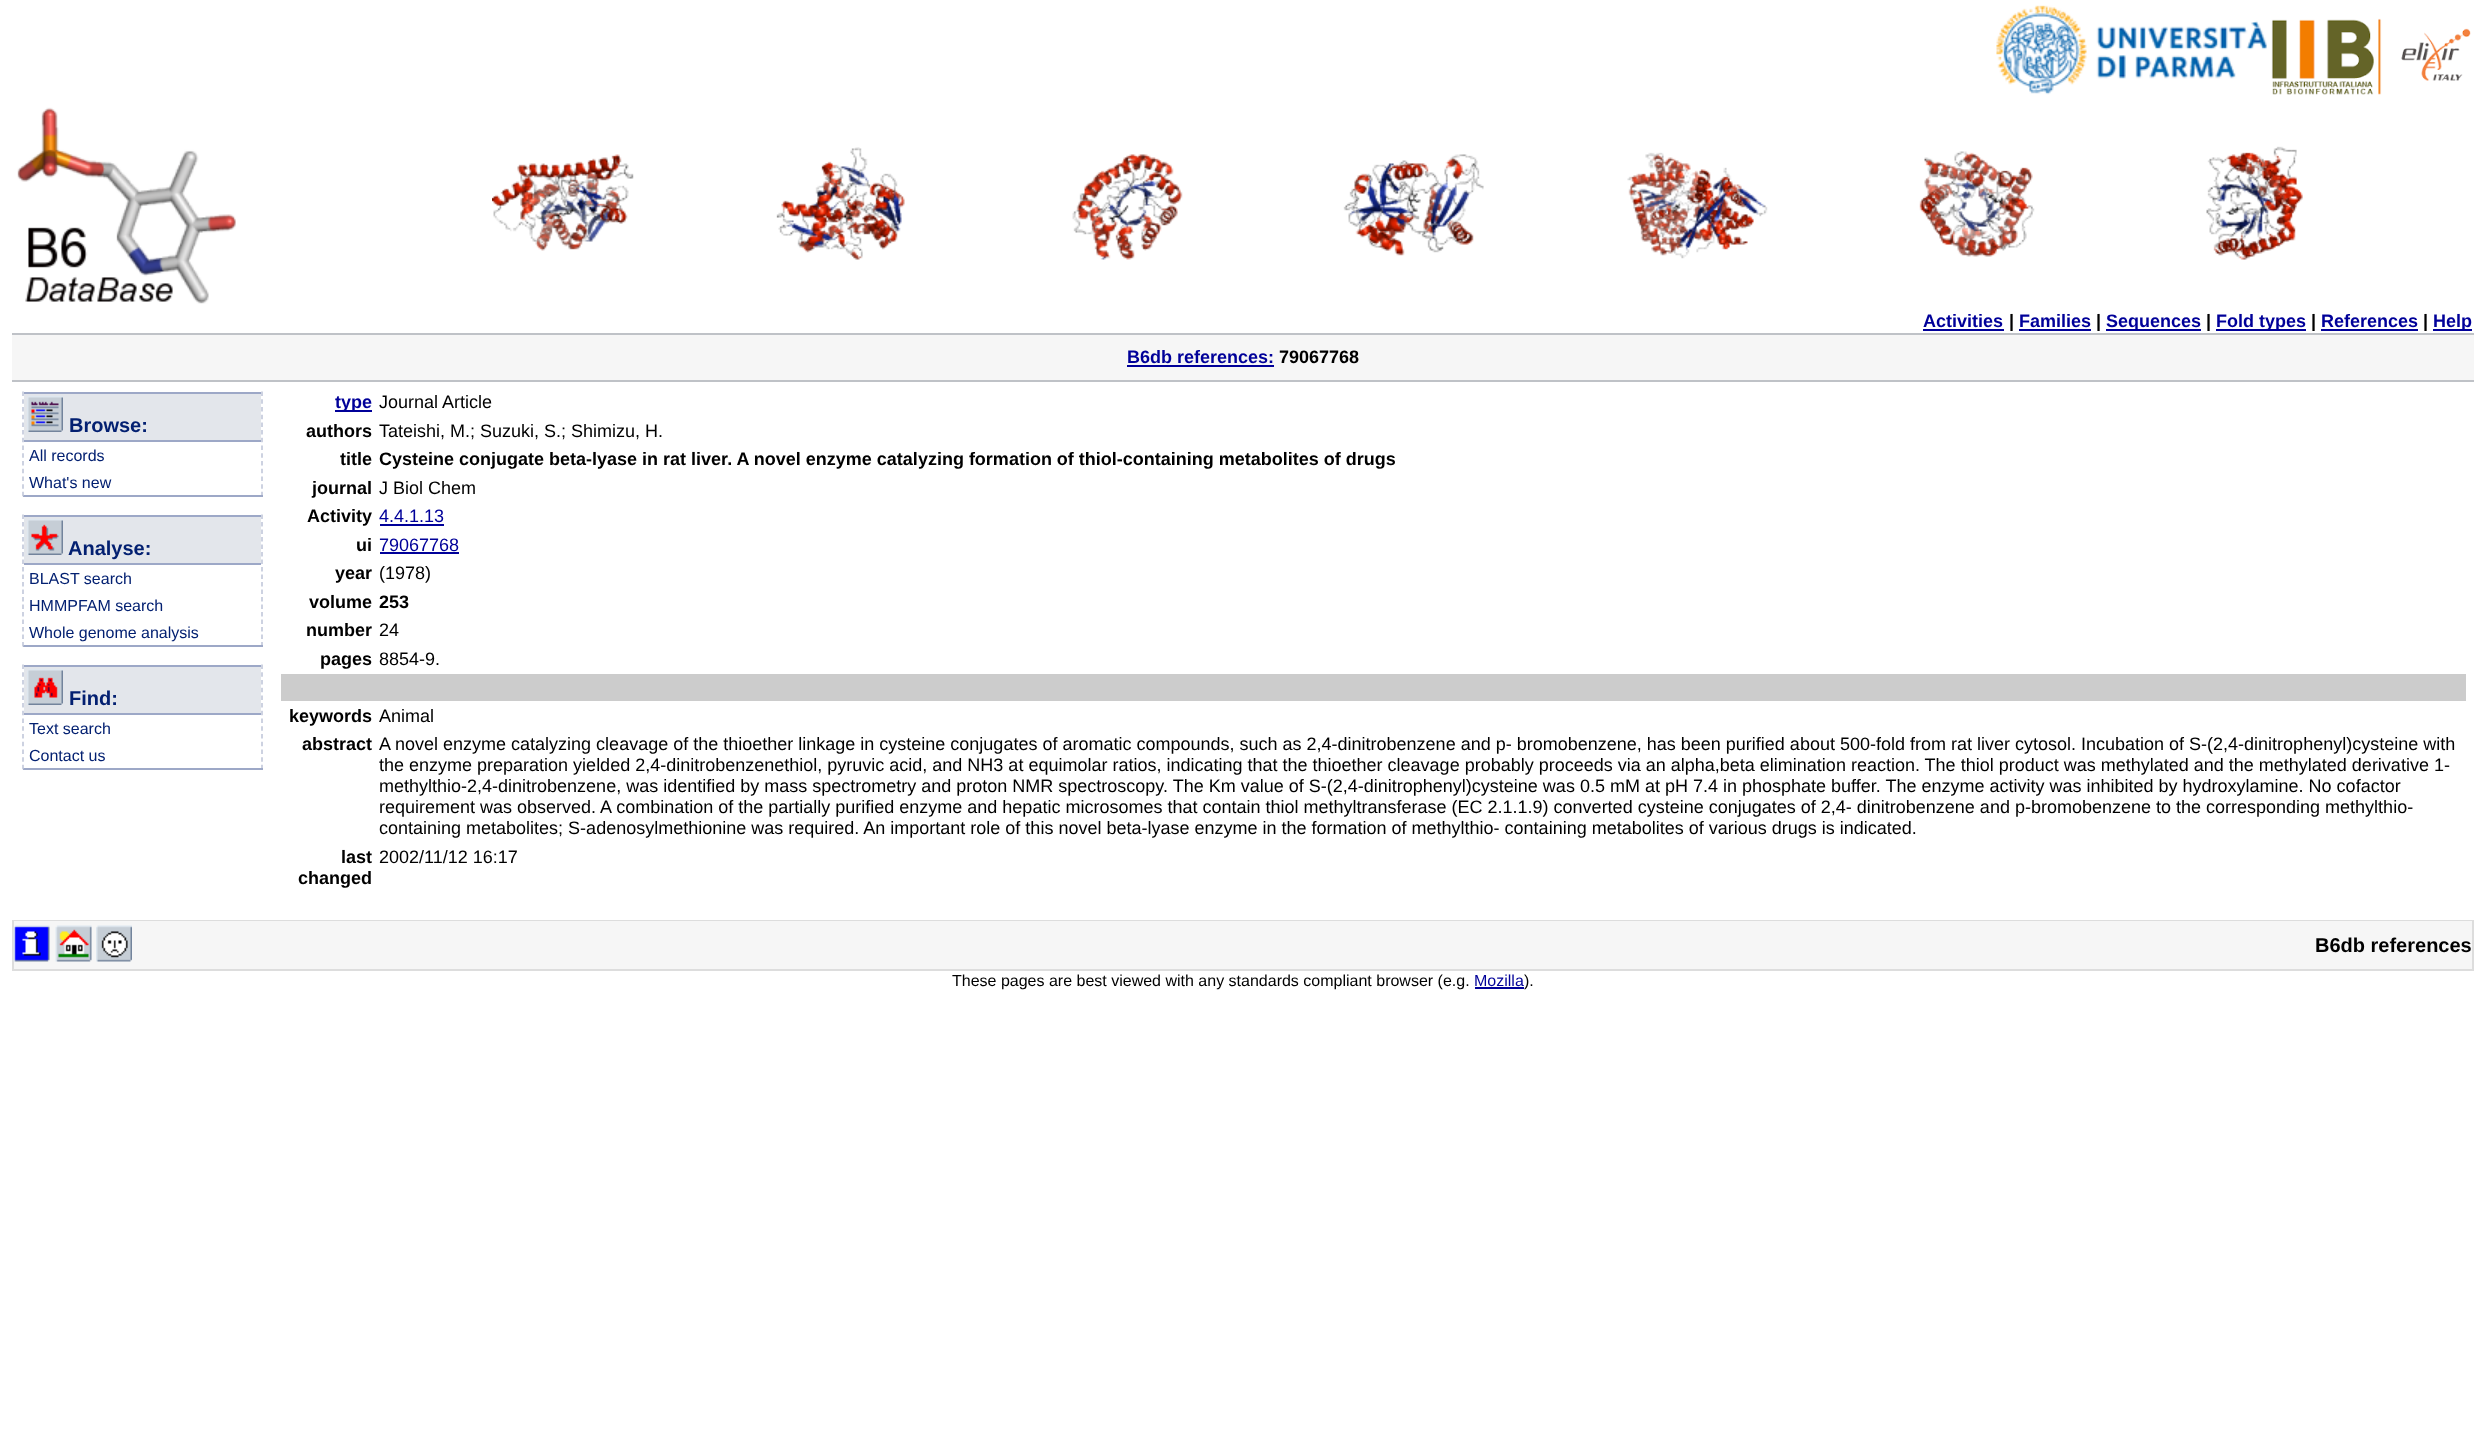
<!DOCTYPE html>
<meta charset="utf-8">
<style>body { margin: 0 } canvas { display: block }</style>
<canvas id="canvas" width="2485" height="1431"></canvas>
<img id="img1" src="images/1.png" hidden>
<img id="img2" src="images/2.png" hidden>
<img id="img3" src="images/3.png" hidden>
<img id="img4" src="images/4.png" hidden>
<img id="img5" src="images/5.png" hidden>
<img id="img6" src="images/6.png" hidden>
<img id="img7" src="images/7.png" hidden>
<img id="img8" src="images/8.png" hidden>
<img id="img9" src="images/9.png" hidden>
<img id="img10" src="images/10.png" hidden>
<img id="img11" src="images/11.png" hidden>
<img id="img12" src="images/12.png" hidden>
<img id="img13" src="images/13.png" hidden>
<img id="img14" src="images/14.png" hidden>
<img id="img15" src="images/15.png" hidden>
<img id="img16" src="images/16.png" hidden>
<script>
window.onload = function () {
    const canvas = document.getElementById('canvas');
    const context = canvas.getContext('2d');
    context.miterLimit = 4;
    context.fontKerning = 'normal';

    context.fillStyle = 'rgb(255, 255, 255)';
    context.fillRect(0, 0, 2485, 1431);
    context.drawImage(document.getElementById('img1'), 1996, 5, 271, 90);
    context.drawImage(document.getElementById('img2'), 2271, 18, 200, 77);
    context.drawImage(document.getElementById('img3'), 17, 107, 219, 197);
    context.drawImage(document.getElementById('img4'), 492, 154, 142, 97);
    context.drawImage(document.getElementById('img5'), 776, 147, 129, 113);
    context.drawImage(document.getElementById('img6'), 1072, 154, 111, 106);
    context.drawImage(document.getElementById('img7'), 1343, 154, 141, 102);
    context.drawImage(document.getElementById('img8'), 1627, 152, 141, 107);
    context.drawImage(document.getElementById('img9'), 1919, 151, 116, 106);
    context.drawImage(document.getElementById('img10'), 2206, 146, 97, 114);
    context.fillStyle = 'rgb(0, 0, 153)';
    context.fillRect(1923, 329, 81, 2);
    context.fillRect(2019, 329, 72, 2);
    context.fillRect(2106, 329, 95, 2);
    context.fillRect(2216, 329, 90, 2);
    context.fillRect(2321, 329, 97, 2);
    context.fillRect(2433, 329, 39, 2);
    context.fillStyle = 'rgb(246, 246, 246)';
    context.fillRect(12, 335, 2462, 45);
    context.fillStyle = 'rgb(191, 194, 199)';
    context.fillRect(12, 333, 2462, 2);
    context.fillRect(12, 380, 2462, 2);
    context.fillStyle = 'rgb(0, 0, 153)';
    context.fillRect(1127, 365, 147, 2);
    context.beginPath();
    context.moveTo(262, 391.5);
    context.lineTo(262, 496.5);
    context.strokeStyle = 'rgb(189, 196, 215)';
    context.lineWidth = 1.5;
    context.setLineDash([4.5, 3.22]);
    context.stroke();
    context.fillStyle = 'rgb(157, 168, 199)';
    context.fillRect(23, 495, 240, 2);
    context.beginPath();
    context.moveTo(23, 391.5);
    context.lineTo(23, 496.5);
    context.stroke();
    context.fillStyle = 'rgb(227, 230, 235)';
    context.fillRect(24, 394, 237, 46);
    context.fillStyle = 'rgb(157, 168, 199)';
    context.fillRect(24, 392, 237, 2);
    context.fillRect(24, 440, 237, 2);
    context.drawImage(document.getElementById('img11'), 27, 396, 36, 36);
    context.beginPath();
    context.moveTo(262, 514.5);
    context.lineTo(262, 646.5);
    context.setLineDash([4.5, 3]);
    context.stroke();
    context.fillRect(23, 645, 240, 2);
    context.beginPath();
    context.moveTo(23, 514.5);
    context.lineTo(23, 646.5);
    context.stroke();
    context.fillStyle = 'rgb(227, 230, 235)';
    context.fillRect(24, 517, 237, 46);
    context.fillStyle = 'rgb(157, 168, 199)';
    context.fillRect(24, 515, 237, 2);
    context.fillRect(24, 563, 237, 2);
    context.drawImage(document.getElementById('img12'), 27, 519, 36, 36);
    context.beginPath();
    context.moveTo(262, 664.5);
    context.lineTo(262, 769.5);
    context.setLineDash([4.5, 3.22]);
    context.stroke();
    context.fillRect(23, 768, 240, 2);
    context.beginPath();
    context.moveTo(23, 664.5);
    context.lineTo(23, 769.5);
    context.stroke();
    context.fillStyle = 'rgb(227, 230, 235)';
    context.fillRect(24, 667, 237, 46);
    context.fillStyle = 'rgb(157, 168, 199)';
    context.fillRect(24, 665, 237, 2);
    context.fillRect(24, 713, 237, 2);
    context.drawImage(document.getElementById('img13'), 27, 669, 36, 36);
    context.fillStyle = 'rgb(0, 0, 153)';
    context.fillRect(335, 410, 37, 2);
    context.fillRect(380, 524, 64, 2);
    context.fillRect(380, 552, 79, 2);
    context.fillStyle = 'rgb(204, 204, 204)';
    context.fillRect(281, 674, 2185, 27);
    context.strokeStyle = 'rgb(221, 221, 221)';
    context.lineWidth = 2;
    context.setLineDash([]);
    context.strokeRect(13, 921, 2460, 49);
    context.fillStyle = 'rgb(246, 246, 246)';
    context.fillRect(14, 921, 2458, 48);
    context.drawImage(document.getElementById('img14'), 13, 925, 37, 37);
    context.drawImage(document.getElementById('img15'), 55, 925, 37, 37);
    context.drawImage(document.getElementById('img16'), 96, 925, 36, 37);
    context.fillStyle = 'rgb(0, 0, 153)';
    context.fillRect(1475, 987, 49, 2);
    context.font = 'bold 18px Liberation Sans';
    context.fillText('Activities', 1923, 327);
    context.fillStyle = 'rgb(0, 0, 0)';
    context.fillText('|', 2009, 327);
    context.fillStyle = 'rgb(0, 0, 153)';
    context.fillText('Families', 2019, 327);
    context.fillStyle = 'rgb(0, 0, 0)';
    context.fillText('|', 2096, 327);
    context.fillStyle = 'rgb(0, 0, 153)';
    context.fillText('Sequences', 2106, 327);
    context.fillStyle = 'rgb(0, 0, 0)';
    context.fillText('|', 2206, 327);
    context.fillStyle = 'rgb(0, 0, 153)';
    context.fillText('Fold types', 2216, 327);
    context.fillStyle = 'rgb(0, 0, 0)';
    context.fillText('|', 2311, 327);
    context.fillStyle = 'rgb(0, 0, 153)';
    context.fillText('References', 2321, 327);
    context.fillStyle = 'rgb(0, 0, 0)';
    context.fillText('|', 2423, 327);
    context.fillStyle = 'rgb(0, 0, 153)';
    context.fillText('Help', 2433, 327);
    context.fillText('B6db references:', 1127, 363);
    context.fillStyle = 'rgb(0, 0, 0)';
    context.fillText('79067768', 1279, 363);
    context.font = 'bold 20px Liberation Sans';
    context.fillStyle = 'rgb(3, 32, 113)';
    context.fillText('Browse:', 69, 432);
    context.font = '16px Liberation Sans';
    context.fillText('All records', 29, 461);
    context.fillText('What\'s new', 29, 488);
    context.font = 'bold 20px Liberation Sans';
    context.fillText('Analyse:', 68, 555);
    context.font = '16px Liberation Sans';
    context.fillText('BLAST search', 29, 584);
    context.fillText('HMMPFAM search', 29, 611);
    context.fillText('Whole genome analysis', 29, 638);
    context.font = 'bold 20px Liberation Sans';
    context.fillText('Find:', 69, 705);
    context.font = '16px Liberation Sans';
    context.fillText('Text search', 29, 734);
    context.fillText('Contact us', 29, 761);
    context.font = 'bold 18px Liberation Sans';
    context.fillStyle = 'rgb(0, 0, 153)';
    context.fillText('type', 335, 408);
    context.font = '18px Liberation Sans';
    context.fillStyle = 'rgb(0, 0, 0)';
    context.fillText('Journal Article', 379, 408);
    context.font = 'bold 18px Liberation Sans';
    context.fillText('authors', 306, 437);
    context.font = '18px Liberation Sans';
    context.fillText('Tateishi, M.; Suzuki, S.; Shimizu, H.', 379, 437);
    context.font = 'bold 18px Liberation Sans';
    context.fillText('title', 340, 465);
    context.fillText('Cysteine conjugate beta-lyase in rat liver. A novel enzyme catalyzing formation of thiol-containing metabolites of drugs', 379, 465);
    context.fillText('journal', 312, 494);
    context.font = '18px Liberation Sans';
    context.fillText('J Biol Chem', 379, 494);
    context.font = 'bold 18px Liberation Sans';
    context.fillText('Activity', 307, 522);
    context.font = '18px Liberation Sans';
    context.fillStyle = 'rgb(0, 0, 153)';
    context.fillText('4.4.1.13', 379, 522);
    context.font = 'bold 18px Liberation Sans';
    context.fillStyle = 'rgb(0, 0, 0)';
    context.fillText('ui', 356, 551);
    context.font = '18px Liberation Sans';
    context.fillStyle = 'rgb(0, 0, 153)';
    context.fillText('79067768', 379, 551);
    context.font = 'bold 18px Liberation Sans';
    context.fillStyle = 'rgb(0, 0, 0)';
    context.fillText('year', 335, 579);
    context.font = '18px Liberation Sans';
    context.fillText('(1978)', 379, 579);
    context.font = 'bold 18px Liberation Sans';
    context.fillText('volume', 309, 608);
    context.fillText('253', 379, 608);
    context.fillText('number', 306, 636);
    context.font = '18px Liberation Sans';
    context.fillText('24', 379, 636);
    context.font = 'bold 18px Liberation Sans';
    context.fillText('pages', 320, 665);
    context.font = '18px Liberation Sans';
    context.fillText('8854-9.', 379, 665);
    context.font = 'bold 18px Liberation Sans';
    context.fillText('keywords', 289, 722);
    context.font = '18px Liberation Sans';
    context.fillText('Animal', 379, 722);
    context.font = 'bold 18px Liberation Sans';
    context.fillText('abstract', 302, 750);
    context.font = '18px Liberation Sans';
    context.fillText('A novel enzyme catalyzing cleavage of the thioether linkage in cysteine conjugates of aromatic compounds, such as 2,4-dinitrobenzene and p- bromobenzene, has been purified about 500-fold from rat liver cytosol. Incubation of S-(2,4-dinitrophenyl)cysteine with', 379, 750);
    context.fillText('the enzyme preparation yielded 2,4-dinitrobenzenethiol, pyruvic acid, and NH3 at equimolar ratios, indicating that the thioether cleavage probably proceeds via an alpha,beta elimination reaction. The thiol product was methylated and the methylated derivative 1-', 379, 771);
    context.fillText('methylthio-2,4-dinitrobenzene, was identified by mass spectrometry and proton NMR spectroscopy. The Km value of S-(2,4-dinitrophenyl)cysteine was 0.5 mM at pH 7.4 in phosphate buffer. The enzyme activity was inhibited by hydroxylamine. No cofactor', 379, 792);
    context.fillText('requirement was observed. A combination of the partially purified enzyme and hepatic microsomes that contain thiol methyltransferase (EC 2.1.1.9) converted cysteine conjugates of 2,4- dinitrobenzene and p-bromobenzene to the corresponding methylthio-', 379, 813);
    context.fillText('containing metabolites; S-adenosylmethionine was required. An important role of this novel beta-lyase enzyme in the formation of methylthio- containing metabolites of various drugs is indicated.', 379, 834);
    context.font = 'bold 18px Liberation Sans';
    context.fillText('last', 341, 863);
    context.fillText('changed', 298, 884);
    context.font = '18px Liberation Sans';
    context.fillText('2002/11/12 16:17', 379, 863);
    context.font = 'bold 20px Liberation Sans';
    context.fillText('B6db references', 2315, 952);
    context.font = '16px Liberation Sans';
    context.fillText('These pages are best viewed with any standards compliant browser (e.g.', 952, 986);
    context.fillStyle = 'rgb(0, 0, 153)';
    context.fillText('Mozilla', 1474, 986);
    context.fillStyle = 'rgb(0, 0, 0)';
    context.fillText(').', 1524, 986);
};
</script>
